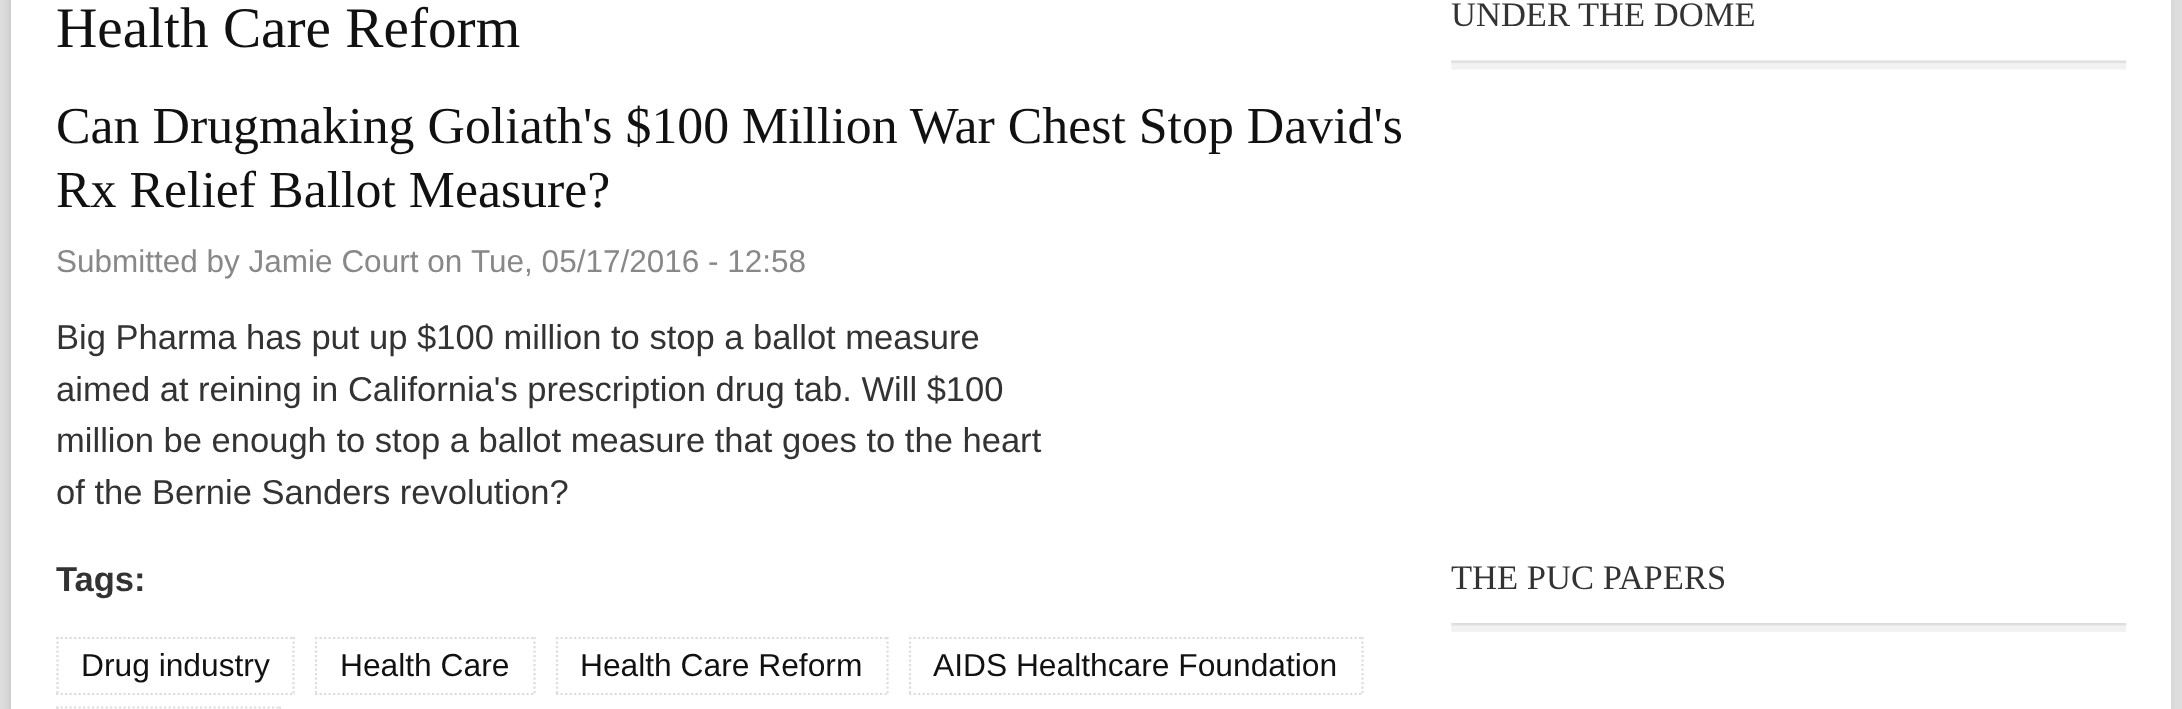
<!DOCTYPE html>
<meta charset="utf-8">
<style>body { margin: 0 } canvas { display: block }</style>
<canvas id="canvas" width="2182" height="709"></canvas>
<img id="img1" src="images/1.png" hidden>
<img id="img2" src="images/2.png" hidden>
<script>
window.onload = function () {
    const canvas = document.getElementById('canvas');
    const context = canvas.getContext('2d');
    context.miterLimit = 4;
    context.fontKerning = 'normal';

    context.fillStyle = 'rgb(222, 222, 222)';
    context.fillRect(0, 0, 2182, 709);
    context.fillStyle = 'rgb(197, 197, 197)';
    context.filter = 'blur(4.5px)';
    context.beginPath();
    context.rect(9, -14, 2160, 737);
    context.fill();
    context.filter = 'none';
    context.fillStyle = 'rgb(255, 255, 255)';
    context.fillRect(11, 0, 2160, 709);
    context.beginPath();
    context.moveTo(56, 638);
    context.lineTo(295, 638);
    context.strokeStyle = 'rgb(221, 221, 221)';
    context.lineWidth = 2.2;
    context.setLineDash([2.25, 2.25]);
    context.stroke();
    context.beginPath();
    context.moveTo(293.5, 637);
    context.lineTo(293.5, 695);
    context.stroke();
    context.beginPath();
    context.moveTo(56, 694);
    context.lineTo(295, 694);
    context.stroke();
    context.beginPath();
    context.moveTo(57.5, 637);
    context.lineTo(57.5, 695);
    context.stroke();
    context.beginPath();
    context.moveTo(315, 638);
    context.lineTo(535.5, 638);
    context.stroke();
    context.beginPath();
    context.moveTo(534.5, 637);
    context.lineTo(534.5, 695);
    context.stroke();
    context.beginPath();
    context.moveTo(315, 694);
    context.lineTo(535.5, 694);
    context.stroke();
    context.beginPath();
    context.moveTo(316, 637);
    context.lineTo(316, 695);
    context.stroke();
    context.beginPath();
    context.moveTo(556, 638);
    context.lineTo(889, 638);
    context.stroke();
    context.beginPath();
    context.moveTo(887.5, 637);
    context.lineTo(887.5, 695);
    context.stroke();
    context.beginPath();
    context.moveTo(556, 694);
    context.lineTo(889, 694);
    context.stroke();
    context.beginPath();
    context.moveTo(557, 637);
    context.lineTo(557, 695);
    context.stroke();
    context.beginPath();
    context.moveTo(909, 638);
    context.lineTo(1363.5, 638);
    context.stroke();
    context.beginPath();
    context.moveTo(1362.5, 637);
    context.lineTo(1362.5, 695);
    context.stroke();
    context.beginPath();
    context.moveTo(909, 694);
    context.lineTo(1363.5, 694);
    context.stroke();
    context.beginPath();
    context.moveTo(910, 637);
    context.lineTo(910, 695);
    context.stroke();
    context.beginPath();
    context.moveTo(56, 707.5);
    context.lineTo(281, 707.5);
    context.stroke();
    context.beginPath();
    context.moveTo(280, 706.5);
    context.lineTo(280, 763);
    context.stroke();
    context.beginPath();
    context.moveTo(57.5, 706.5);
    context.lineTo(57.5, 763);
    context.stroke();
    context.drawImage(document.getElementById('img1'), 1451, 60, 676, 10);
    context.drawImage(document.getElementById('img2'), 1451, 623, 676, 9);
    context.font = '57.25px Liberation Serif';
    context.fillStyle = 'rgb(17, 17, 17)';
    context.fillText('Health Care Reform', 56, 47);
    context.font = '51.85px Liberation Serif';
    context.fillText('Can Drugmaking Goliath\'s $100 Million War Chest Stop David\'s', 56, 143);
    context.fillText('Rx Relief Ballot Measure?', 56, 207);
    context.font = '31.5px Liberation Sans';
    context.fillStyle = 'rgb(136, 136, 136)';
    context.fillText('Submitted by Jamie Court on', 56, 272);
    context.fillText('Tue, 05/17/2016 - 12:58', 471, 272);
    context.font = '34.55px Liberation Sans';
    context.fillStyle = 'rgb(51, 51, 51)';
    context.fillText('Big Pharma has put up $100 million to stop a ballot measure', 56, 349);
    context.fillText('aimed at reining in California\'s prescription drug tab. Will $100', 56, 401);
    context.fillText('million be enough to stop a ballot measure that goes to the heart', 56, 452);
    context.fillText('of the Bernie Sanders revolution?', 56, 504);
    context.font = 'bold 34.55px Liberation Sans';
    context.fillText('Tags:', 56, 591);
    context.font = '31.75px Liberation Sans';
    context.fillStyle = 'rgb(17, 17, 17)';
    context.fillText('Drug industry', 81, 676);
    context.fillText('Health Care', 340, 676);
    context.fillText('Health Care Reform', 580, 676);
    context.fillText('AIDS Healthcare Foundation', 933, 676);
    context.font = '34.55px Liberation Serif';
    context.fillStyle = 'rgb(51, 51, 51)';
    context.fillText('UNDER THE DOME', 1451, 26);
    context.fillText('THE PUC PAPERS', 1451, 589);
};
</script>
